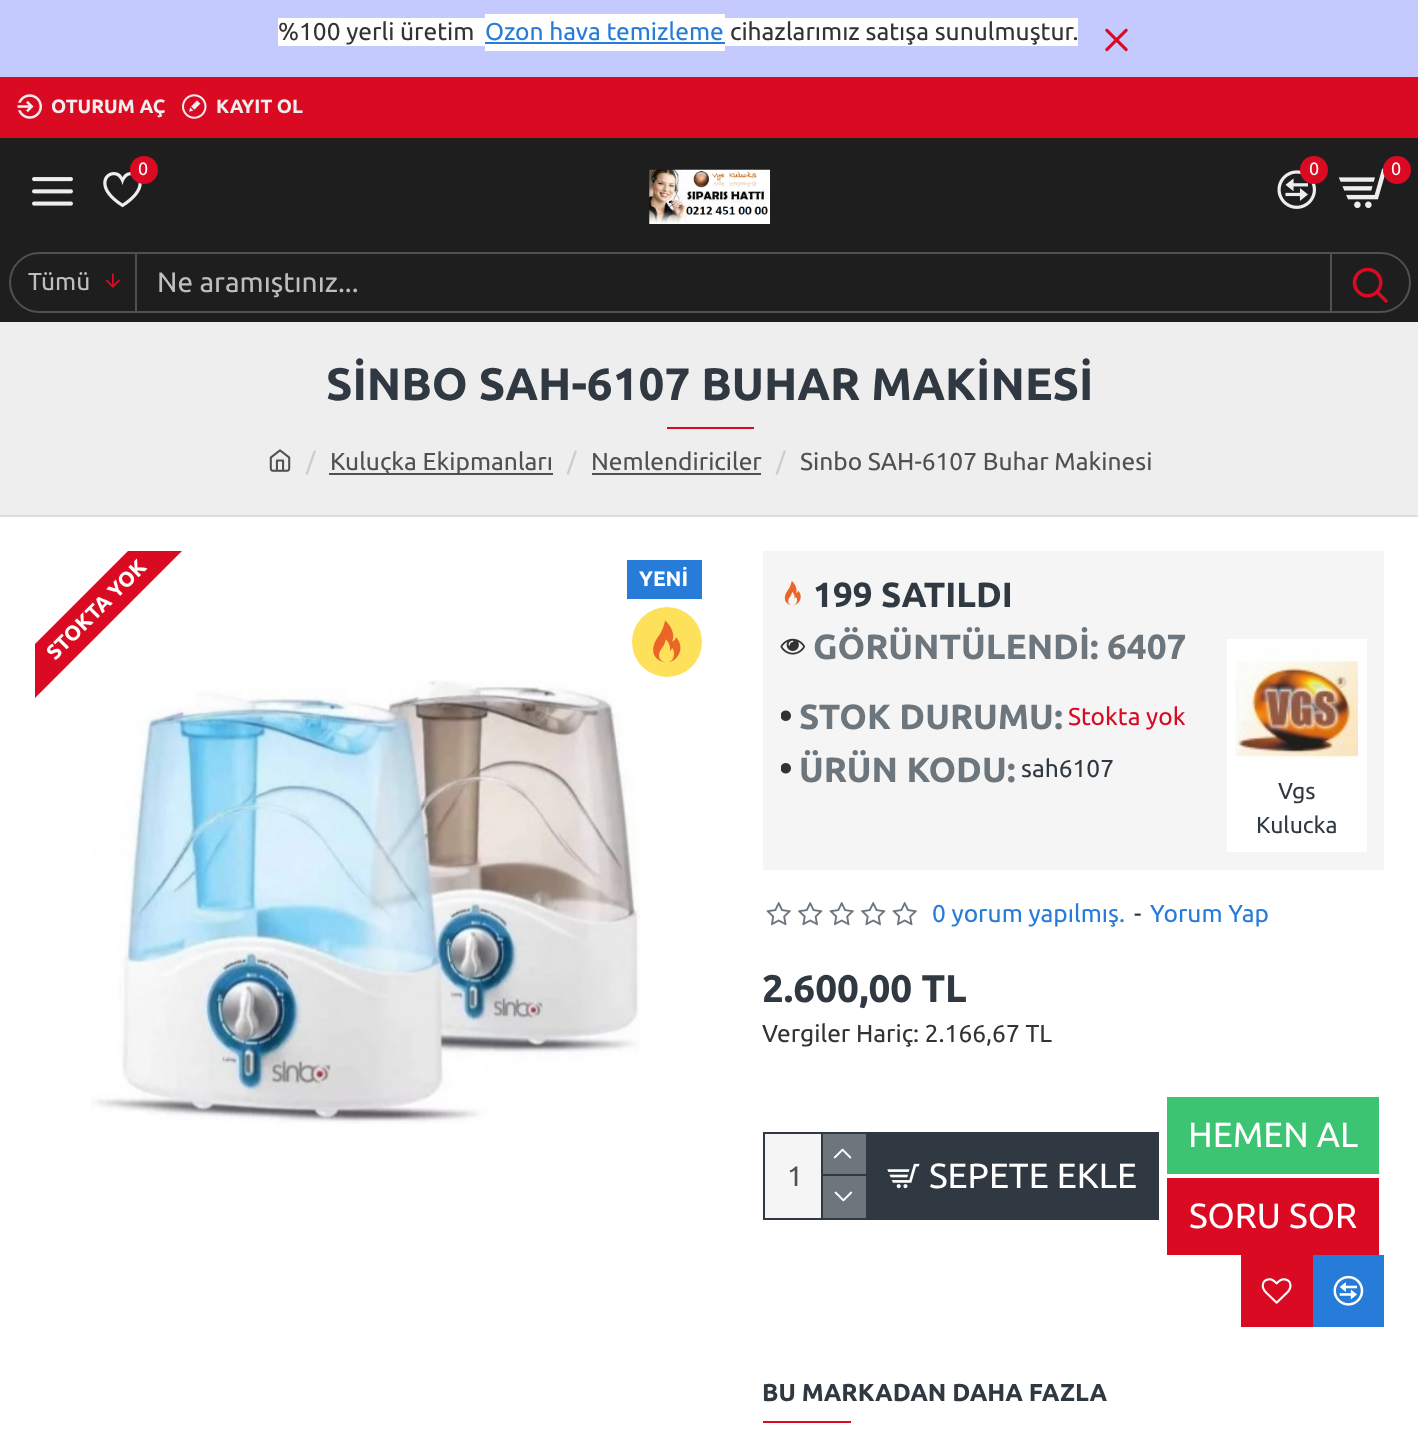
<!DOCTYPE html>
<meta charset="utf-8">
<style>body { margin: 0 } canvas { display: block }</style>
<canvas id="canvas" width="1418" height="1447"></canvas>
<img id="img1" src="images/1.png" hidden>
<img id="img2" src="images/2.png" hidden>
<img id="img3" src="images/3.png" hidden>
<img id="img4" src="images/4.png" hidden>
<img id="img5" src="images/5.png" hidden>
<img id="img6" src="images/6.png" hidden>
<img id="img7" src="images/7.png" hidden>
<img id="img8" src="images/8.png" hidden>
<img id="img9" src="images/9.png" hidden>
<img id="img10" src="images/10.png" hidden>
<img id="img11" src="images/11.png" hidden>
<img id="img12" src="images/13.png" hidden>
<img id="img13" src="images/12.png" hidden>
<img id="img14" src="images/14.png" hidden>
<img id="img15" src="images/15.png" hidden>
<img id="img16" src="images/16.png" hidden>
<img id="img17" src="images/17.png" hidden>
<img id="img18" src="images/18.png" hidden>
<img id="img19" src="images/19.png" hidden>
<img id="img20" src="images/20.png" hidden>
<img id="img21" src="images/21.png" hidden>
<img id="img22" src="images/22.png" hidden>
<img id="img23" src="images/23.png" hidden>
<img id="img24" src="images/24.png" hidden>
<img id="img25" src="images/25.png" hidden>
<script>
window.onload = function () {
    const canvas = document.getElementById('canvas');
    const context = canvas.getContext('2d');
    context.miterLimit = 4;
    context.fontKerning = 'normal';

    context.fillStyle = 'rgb(255, 255, 255)';
    context.fillRect(0, 0, 1418, 1447);
    context.fillStyle = 'rgb(196, 202, 253)';
    context.fillRect(0, 0, 1418, 77);
    context.fillStyle = 'rgb(255, 255, 255)';
    context.fillRect(278, 18, 207, 28);
    context.fillRect(485, 14, 240, 37);
    context.fillRect(725, 18, 353, 28);
    context.fillStyle = 'rgb(39, 124, 217)';
    context.fillRect(485, 42, 240, 2);
    context.drawImage(document.getElementById('img1'), 1105, 28, 23, 24);
    context.fillStyle = 'rgb(218, 10, 34)';
    context.fillRect(0, 77, 1418, 61);
    context.drawImage(document.getElementById('img2'), 17, 94, 25, 25);
    context.drawImage(document.getElementById('img3'), 182, 94, 25, 25);
    context.fillStyle = 'rgb(31, 30, 30)';
    context.fillRect(0, 138, 1418, 184);
    context.drawImage(document.getElementById('img4'), 32, 177, 41, 29);
    context.drawImage(document.getElementById('img5'), 103, 172, 39, 36);
    context.fillStyle = 'rgb(218, 10, 34)';
    context.beginPath();
    context.arc(144, 170, 14, 0, 2 * Math.PI);
    context.fill();
    context.drawImage(document.getElementById('img6'), 649, 169, 121, 55);
    context.drawImage(document.getElementById('img7'), 1277, 170, 39, 39);
    context.beginPath();
    context.arc(1314, 170, 14, 0, 2 * Math.PI);
    context.fill();
    context.drawImage(document.getElementById('img8'), 1338, 168, 47, 41);
    context.beginPath();
    context.arc(1397, 170, 14, 0, 2 * Math.PI);
    context.fill();
    context.beginPath();
    context.roundRect(10, 253, 1400, 59, 29.5);
    context.strokeStyle = 'rgb(80, 80, 80)';
    context.lineWidth = 2;
    context.stroke();
    context.fillStyle = 'rgb(80, 80, 80)';
    context.fillRect(135, 254, 2, 58);
    context.drawImage(document.getElementById('img9'), 105, 273, 15, 15);
    context.fillRect(1330, 254, 2, 58);
    context.drawImage(document.getElementById('img10'), 1352, 267, 36, 36);
    context.fillStyle = 'rgb(238, 238, 238)';
    context.fillRect(0, 322, 1418, 193);
    context.fillStyle = 'rgb(218, 10, 34)';
    context.fillRect(667, 427, 87, 2);
    context.fillStyle = 'rgb(221, 221, 221)';
    context.fillRect(0, 515, 1418, 2);
    context.drawImage(document.getElementById('img11'), 269, 449, 22, 23);
    context.fillStyle = 'rgb(80, 80, 80)';
    context.fillRect(329, 473, 224, 2);
    context.fillRect(592, 473, 169, 2);
    context.drawImage(document.getElementById('img12'), 91, 680, 549, 444);
    context.save();
    context.beginPath();
    context.rect(35, 551, 676, 676);
    context.clip();
    context.fillStyle = 'rgb(218, 10, 34)';
    context.beginPath();
    context.moveTo(-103, 782);
    context.lineTo(268, 411);
    context.lineTo(295, 438);
    context.lineTo(-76, 809);
    context.closePath();
    context.fill();
    context.restore();
    context.fillStyle = 'rgb(39, 124, 217)';
    context.fillRect(627, 560, 75, 39);
    context.fillStyle = 'rgb(254, 225, 91)';
    context.beginPath();
    context.arc(667, 642, 35, 0, 2 * Math.PI);
    context.fill();
    context.drawImage(document.getElementById('img13'), 653, 620, 28, 43);
    context.fillStyle = 'rgb(245, 245, 245)';
    context.fillRect(763, 551, 621, 319);
    context.drawImage(document.getElementById('img14'), 784, 580, 17, 26);
    context.drawImage(document.getElementById('img15'), 780, 638, 25, 17);
    context.drawImage(document.getElementById('img16'), 781, 710, 10, 11);
    context.drawImage(document.getElementById('img17'), 781, 763, 10, 11);
    context.fillStyle = 'rgb(255, 255, 255)';
    context.fillRect(1227, 639, 140, 213);
    context.drawImage(document.getElementById('img18'), 1235, 648, 123, 111);
    context.drawImage(document.getElementById('img19'), 766, 902, 25, 24);
    context.drawImage(document.getElementById('img20'), 798, 902, 25, 24);
    context.drawImage(document.getElementById('img19'), 829, 902, 25, 24);
    context.drawImage(document.getElementById('img20'), 861, 902, 25, 24);
    context.drawImage(document.getElementById('img19'), 892, 902, 25, 24);
    context.strokeStyle = 'rgb(48, 56, 65)';
    context.strokeRect(764, 1133, 103, 86);
    context.fillStyle = 'rgb(245, 245, 245)';
    context.fillRect(765, 1134, 56, 84);
    context.fillStyle = 'rgb(48, 56, 65)';
    context.fillRect(821, 1134, 2, 84);
    context.fillStyle = 'rgb(109, 118, 125)';
    context.fillRect(823, 1134, 43, 40);
    context.fillStyle = 'rgb(48, 56, 65)';
    context.fillRect(823, 1174, 43, 2);
    context.drawImage(document.getElementById('img21'), 833, 1148, 19, 11);
    context.fillStyle = 'rgb(109, 118, 125)';
    context.fillRect(823, 1176, 43, 42);
    context.drawImage(document.getElementById('img22'), 834, 1191, 19, 11);
    context.fillStyle = 'rgb(48, 56, 65)';
    context.fillRect(868, 1132, 291, 88);
    context.drawImage(document.getElementById('img23'), 887, 1163, 33, 26);
    context.fillStyle = 'rgb(60, 196, 114)';
    context.fillRect(1167, 1097, 212, 77);
    context.fillStyle = 'rgb(218, 10, 34)';
    context.fillRect(1167, 1178, 212, 77);
    context.fillRect(1241, 1255, 72, 72);
    context.drawImage(document.getElementById('img24'), 1261, 1278, 31, 26);
    context.fillStyle = 'rgb(39, 124, 217)';
    context.fillRect(1313, 1255, 71, 72);
    context.drawImage(document.getElementById('img25'), 1333, 1275, 31, 31);
    context.fillStyle = 'rgb(218, 10, 34)';
    context.fillRect(763, 1421, 88, 2);
    context.font = '24.5px Ubuntu';
    context.fillStyle = 'rgb(51, 51, 51)';
    context.fillText('%100 yerli üretim', 278, 40);
    context.fillStyle = 'rgb(39, 124, 217)';
    context.fillText('Ozon hava temizleme', 485, 40);
    context.fillStyle = 'rgb(51, 51, 51)';
    context.fillText('cihazlarımız satışa sunulmuştur.', 730, 40);
    context.font = 'bold 19.25px Ubuntu';
    context.fillStyle = 'rgb(238, 238, 238)';
    context.fillText('OTURUM AÇ', 51, 113);
    context.fillText('KAYIT OL', 216, 113);
    context.font = '18px Ubuntu';
    context.fillStyle = 'rgb(255, 255, 255)';
    context.fillText('0', 138, 175);
    context.fillText('0', 1309, 175);
    context.fillText('0', 1391, 175);
    context.font = '24.5px Ubuntu';
    context.fillStyle = 'rgb(190, 190, 190)';
    context.fillText('Tümü', 28, 290);
    context.font = '28px Ubuntu';
    context.fillText('Ne aramıştınız...', 157, 292);
    context.font = 'bold 45.5px Ubuntu';
    context.fillStyle = 'rgb(48, 56, 65)';
    context.fillText('SİNBO SAH-6107 BUHAR MAKİNESİ', 326, 400);
    context.font = '24.5px Ubuntu';
    context.fillStyle = 'rgb(204, 204, 204)';
    context.fillText('/', 306, 470);
    context.fillStyle = 'rgb(80, 80, 80)';
    context.fillText('Kuluçka Ekipmanları', 330, 470);
    context.fillStyle = 'rgb(204, 204, 204)';
    context.fillText('/', 567, 470);
    context.fillStyle = 'rgb(80, 80, 80)';
    context.fillText('Nemlendiriciler', 591, 470);
    context.fillStyle = 'rgb(204, 204, 204)';
    context.fillText('/', 776, 470);
    context.fillStyle = 'rgb(80, 80, 80)';
    context.fillText('Sinbo SAH-6107 Buhar Makinesi', 800, 470);
    context.font = 'bold 21px Ubuntu';
    context.fillStyle = 'rgb(255, 255, 255)';
    context.save();
    context.translate(55, 661);
    context.rotate(-45 * Math.PI / 180);
    context.fillText('STOKTA YOK', 0, 0);
    context.restore();
    context.fillText('YENİ', 639, 586);
    context.font = 'bold 35px Ubuntu';
    context.fillStyle = 'rgb(48, 56, 65)';
    context.fillText('199 SATILDI', 813, 607);
    context.fillStyle = 'rgb(109, 118, 125)';
    context.fillText('GÖRÜNTÜLENDİ: 6407', 813, 659);
    context.fillText('STOK DURUMU:', 799, 729);
    context.font = '24.5px Ubuntu';
    context.fillStyle = 'rgb(218, 10, 34)';
    context.fillText('Stokta yok', 1068, 725);
    context.font = 'bold 35px Ubuntu';
    context.fillStyle = 'rgb(109, 118, 125)';
    context.fillText('ÜRÜN KODU:', 799, 782);
    context.font = '24.5px Ubuntu';
    context.fillStyle = 'rgb(48, 56, 65)';
    context.fillText('sah6107', 1021, 777);
    context.font = '23px Ubuntu';
    context.fillText('Vgs', 1278, 799);
    context.fillText('Kulucka', 1256, 833);
    context.font = '24.5px Ubuntu';
    context.fillStyle = 'rgb(39, 124, 217)';
    context.fillText('0 yorum yapılmış.', 932, 922);
    context.fillStyle = 'rgb(51, 51, 51)';
    context.fillText('-', 1134, 922);
    context.fillStyle = 'rgb(39, 124, 217)';
    context.fillText('Yorum Yap', 1150, 922);
    context.font = 'bold 38.5px Ubuntu';
    context.fillStyle = 'rgb(48, 56, 65)';
    context.fillText('2.600,00 TL', 762, 1002);
    context.font = '24.5px Ubuntu';
    context.fillStyle = 'rgb(51, 51, 51)';
    context.fillText('Vergiler Hariç: 2.166,67 TL', 762, 1042);
    context.font = '28px Ubuntu';
    context.fillStyle = 'rgb(80, 80, 80)';
    context.fillText('1', 787, 1186);
    context.font = '35px Ubuntu';
    context.fillStyle = 'rgb(255, 255, 255)';
    context.fillText('SEPETE EKLE', 929, 1188);
    context.fillText('HEMEN AL', 1188, 1147);
    context.fillText('SORU SOR', 1189, 1228);
    context.font = 'bold 24.5px Ubuntu';
    context.fillStyle = 'rgb(48, 56, 65)';
    context.fillText('BU MARKADAN DAHA FAZLA', 762, 1401);
};
</script>
